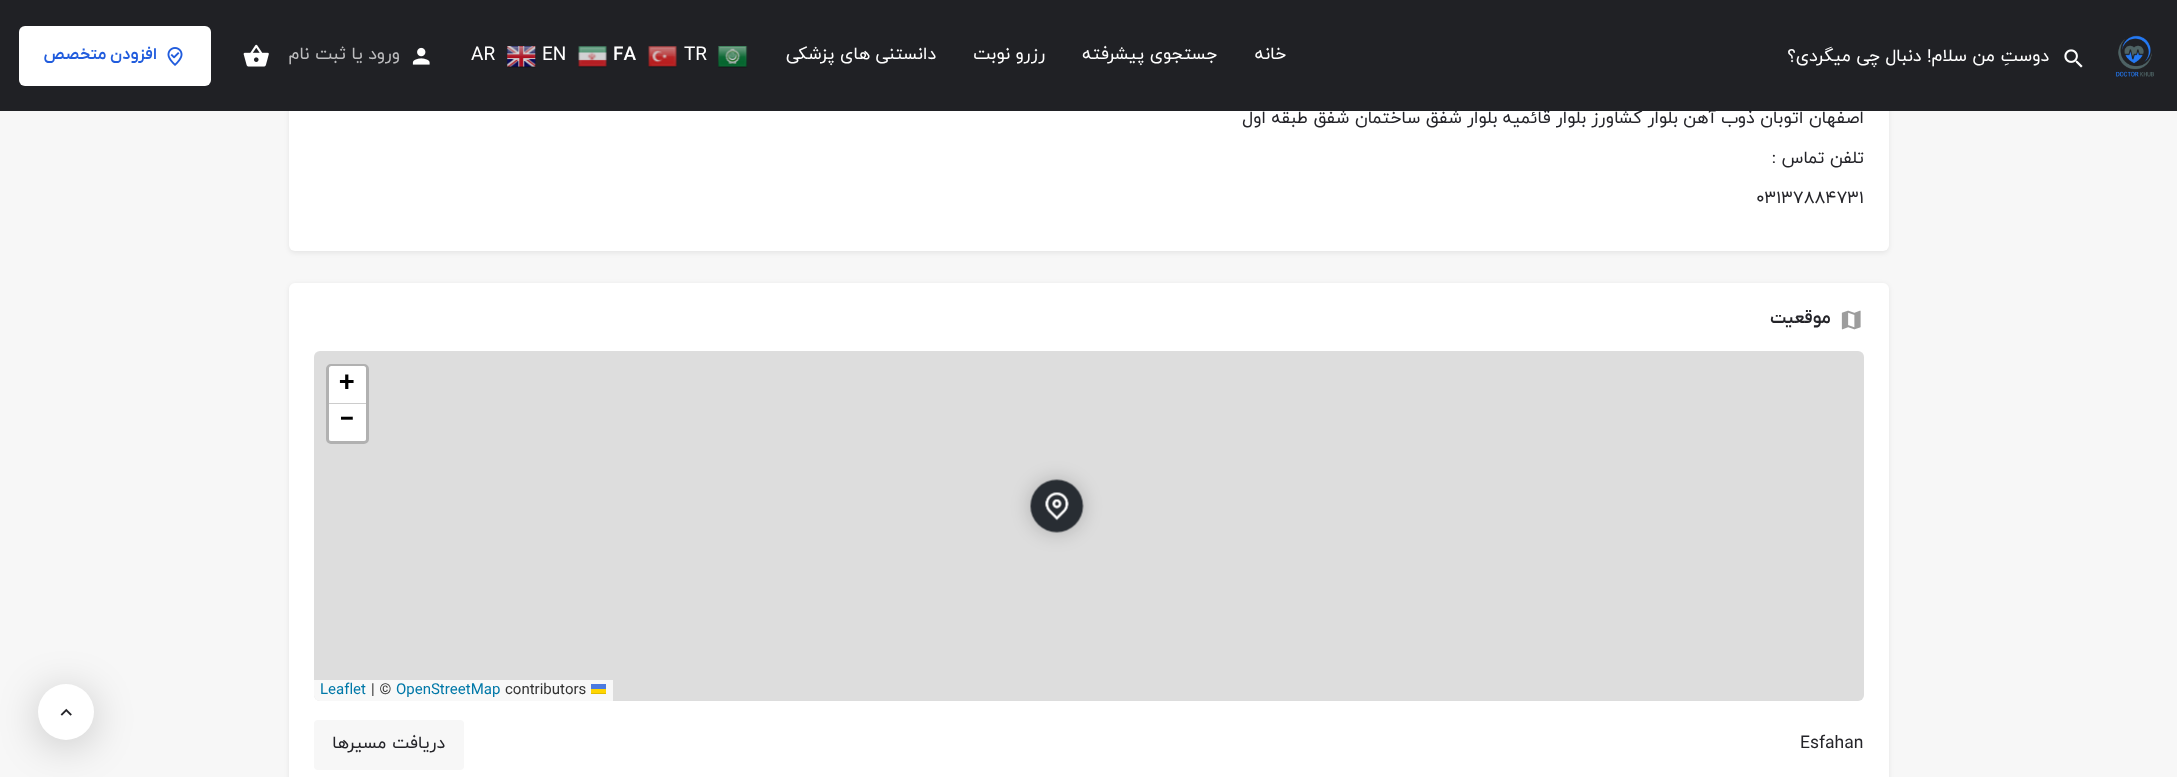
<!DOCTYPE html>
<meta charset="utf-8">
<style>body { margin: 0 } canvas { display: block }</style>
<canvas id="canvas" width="2177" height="777"></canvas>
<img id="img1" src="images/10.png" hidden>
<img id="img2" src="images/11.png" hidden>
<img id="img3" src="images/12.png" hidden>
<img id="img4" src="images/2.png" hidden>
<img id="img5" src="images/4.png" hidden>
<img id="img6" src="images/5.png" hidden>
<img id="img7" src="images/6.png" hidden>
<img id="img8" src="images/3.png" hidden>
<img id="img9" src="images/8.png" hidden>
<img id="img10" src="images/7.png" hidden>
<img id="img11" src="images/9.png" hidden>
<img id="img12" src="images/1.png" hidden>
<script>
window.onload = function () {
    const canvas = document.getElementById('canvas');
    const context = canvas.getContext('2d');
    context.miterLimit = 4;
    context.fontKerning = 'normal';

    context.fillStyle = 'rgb(247, 247, 247)';
    context.fillRect(0, 0, 2177, 777);
    context.fillStyle = 'rgba(0, 0, 0, 0.07)';
    context.filter = 'blur(2.5px)';
    context.beginPath();
    context.roundRect(289, -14, 1600, 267, 6);
    context.fill();
    context.filter = 'none';
    context.fillStyle = 'rgb(255, 255, 255)';
    context.beginPath();
    context.roundRect(289, -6, 1600, 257, 6);
    context.fill();
    context.fillStyle = 'rgba(0, 0, 0, 0.07)';
    context.filter = 'blur(2.5px)';
    context.beginPath();
    context.roundRect(289, 284, 1600, 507, 6);
    context.fill();
    context.filter = 'none';
    context.fillStyle = 'rgb(255, 255, 255)';
    context.beginPath();
    context.roundRect(289, 283, 1600, 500, 6);
    context.fill();
    context.drawImage(document.getElementById('img1'), 1841, 310, 20, 20);
    context.fillStyle = 'rgb(221, 221, 221)';
    context.beginPath();
    context.roundRect(314, 351, 1550, 350, 6);
    context.fill();
    context.fillStyle = 'rgba(0, 0, 0, 0.2)';
    context.filter = 'blur(9.5px)';
    context.beginPath();
    context.roundRect(1030, 480, 53, 53, 26.5);
    context.fill();
    context.filter = 'none';
    context.drawImage(document.getElementById('img2'), 1030, 479, 54, 54);
    context.beginPath();
    context.roundRect(327.5, 365.5, 40, 77, 3.5);
    context.strokeStyle = 'rgb(177, 177, 177)';
    context.lineWidth = 3;
    context.stroke();
    context.fillStyle = 'rgb(255, 255, 255)';
    context.beginPath();
    context.roundRect(329, 366, 37, 38, [2.5, 2.5, 0, 0]);
    context.fill();
    context.fillStyle = 'rgb(204, 204, 204)';
    context.fillRect(329, 403, 37, 1);
    context.fillStyle = 'rgb(255, 255, 255)';
    context.beginPath();
    context.roundRect(329, 404, 37, 37, [0, 0, 2.5, 2.5]);
    context.fill();
    context.fillStyle = 'rgba(255, 255, 255, 0.8)';
    context.beginPath();
    context.roundRect(314, 680, 299, 21, [0, 0, 0, 6]);
    context.fill();
    context.fillStyle = 'rgb(76, 123, 225)';
    context.fillRect(591, 684, 15, 5);
    context.fillStyle = 'rgb(255, 213, 0)';
    context.fillRect(591, 689, 15, 4);
    context.fillStyle = 'rgb(224, 188, 0)';
    context.fillRect(591, 693, 15, 1);
    context.fillStyle = 'rgb(247, 247, 247)';
    context.beginPath();
    context.roundRect(314, 720, 150, 50, 4);
    context.fill();
    context.fillStyle = 'rgba(0, 0, 0, 0.2)';
    context.filter = 'blur(20.5px)';
    context.beginPath();
    context.roundRect(38, 690, 56, 56, 28);
    context.fill();
    context.filter = 'none';
    context.fillStyle = 'rgb(255, 255, 255)';
    context.beginPath();
    context.arc(66, 712, 28, 0, 2 * Math.PI);
    context.fill();
    context.drawImage(document.getElementById('img3'), 60, 708, 12, 8);
    context.direction = 'rtl';
    context.font = '17.5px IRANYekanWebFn';
    context.fillStyle = 'rgb(36, 36, 41)';
    context.fillText('اصفهان اتوبان ذوب آهن بلوار کشاورز بلوار قائمیه بلوار شفق ساختمان شفق طبقه اول', 1864, 123);
    context.fillStyle = 'rgb(32, 33, 37)';
    context.fillRect(0, 0, 2177, 111);
    context.fillStyle = 'rgb(255, 255, 255)';
    context.fillText('دوستِ من سلام! دنبال چی میگردی؟', 2049, 61);
    context.drawImage(document.getElementById('img4'), 2064, 49, 19, 19);
    context.drawImage(document.getElementById('img5'), 648, 46, 29, 22);
    context.drawImage(document.getElementById('img6'), 578, 46, 29, 22);
    context.drawImage(document.getElementById('img7'), 507, 46, 29, 22);
    context.drawImage(document.getElementById('img8'), 718, 46, 30, 22);
    context.direction = 'ltr';
    context.font = '19px IRANYekanWebFn';
    context.fillText('TR', 684, 60);
    context.font = 'bold 19px IRANYekanWebFn';
    context.fillText('FA', 613, 60);
    context.font = '19px IRANYekanWebFn';
    context.fillText('EN', 542, 60);
    context.fillText('AR', 471, 60);
    context.direction = 'rtl';
    context.font = '17.5px IRANYekanWebFn';
    context.fillText('دانستنی های پزشکی', 936, 59);
    context.fillText('رزرو نوبت', 1045, 59);
    context.fillText('جستجوی پیشرفته', 1217, 59);
    context.fillText('خانه', 1286, 59);
    context.drawImage(document.getElementById('img9'), 243, 44, 26, 23);
    context.fillStyle = 'rgb(188, 188, 190)';
    context.fillText('ثبت نام', 346, 59);
    context.fillText('یا', 363, 59);
    context.fillText('ورود', 400, 59);
    context.drawImage(document.getElementById('img10'), 412, 47, 18, 18);
    context.fillStyle = 'rgb(255, 255, 255)';
    context.beginPath();
    context.roundRect(19, 26, 192, 60, 6);
    context.fill();
    context.font = '600 16.25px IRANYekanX';
    context.fillStyle = 'rgb(33, 92, 221)';
    context.fillText('افزودن متخصص', 157, 59);
    context.drawImage(document.getElementById('img11'), 167, 47, 16, 19);
    context.drawImage(document.getElementById('img12'), 2115, 35, 39, 42);
    context.font = '17.5px IRANYekanWebFn';
    context.fillStyle = 'rgb(36, 36, 41)';
    context.fillText('تلفن تماس :', 1864, 163);
    context.direction = 'ltr';
    context.fillText('03137884731', 1756, 203);
    context.direction = 'rtl';
    context.font = '600 17.5px IRANYekanX';
    context.fillText('موقعیت', 1831, 323);
    context.direction = 'ltr';
    context.font = 'bold 28px IRANYekanWebFn';
    context.fillStyle = 'rgb(0, 0, 0)';
    context.fillText('+', 339, 391);
    context.font = 'bold 28px IRANYekanX';
    context.fillText('−', 339, 428);
    context.font = '15px IRANYekanWebFn';
    context.fillStyle = 'rgb(51, 51, 51)';
    context.fillText('contributors', 505, 694);
    context.fillStyle = 'rgb(0, 120, 168)';
    context.fillText('OpenStreetMap', 396, 694);
    context.fillStyle = 'rgb(51, 51, 51)';
    context.fillText('| ©', 371, 694);
    context.fillStyle = 'rgb(0, 120, 168)';
    context.fillText('Leaflet', 320, 694);
    context.font = '17.5px IRANYekanWebFn';
    context.fillStyle = 'rgb(36, 36, 41)';
    context.fillText('Esfahan', 1800, 748);
    context.direction = 'rtl';
    context.fillText('دریافت مسیرها', 445, 748);
};
</script>
